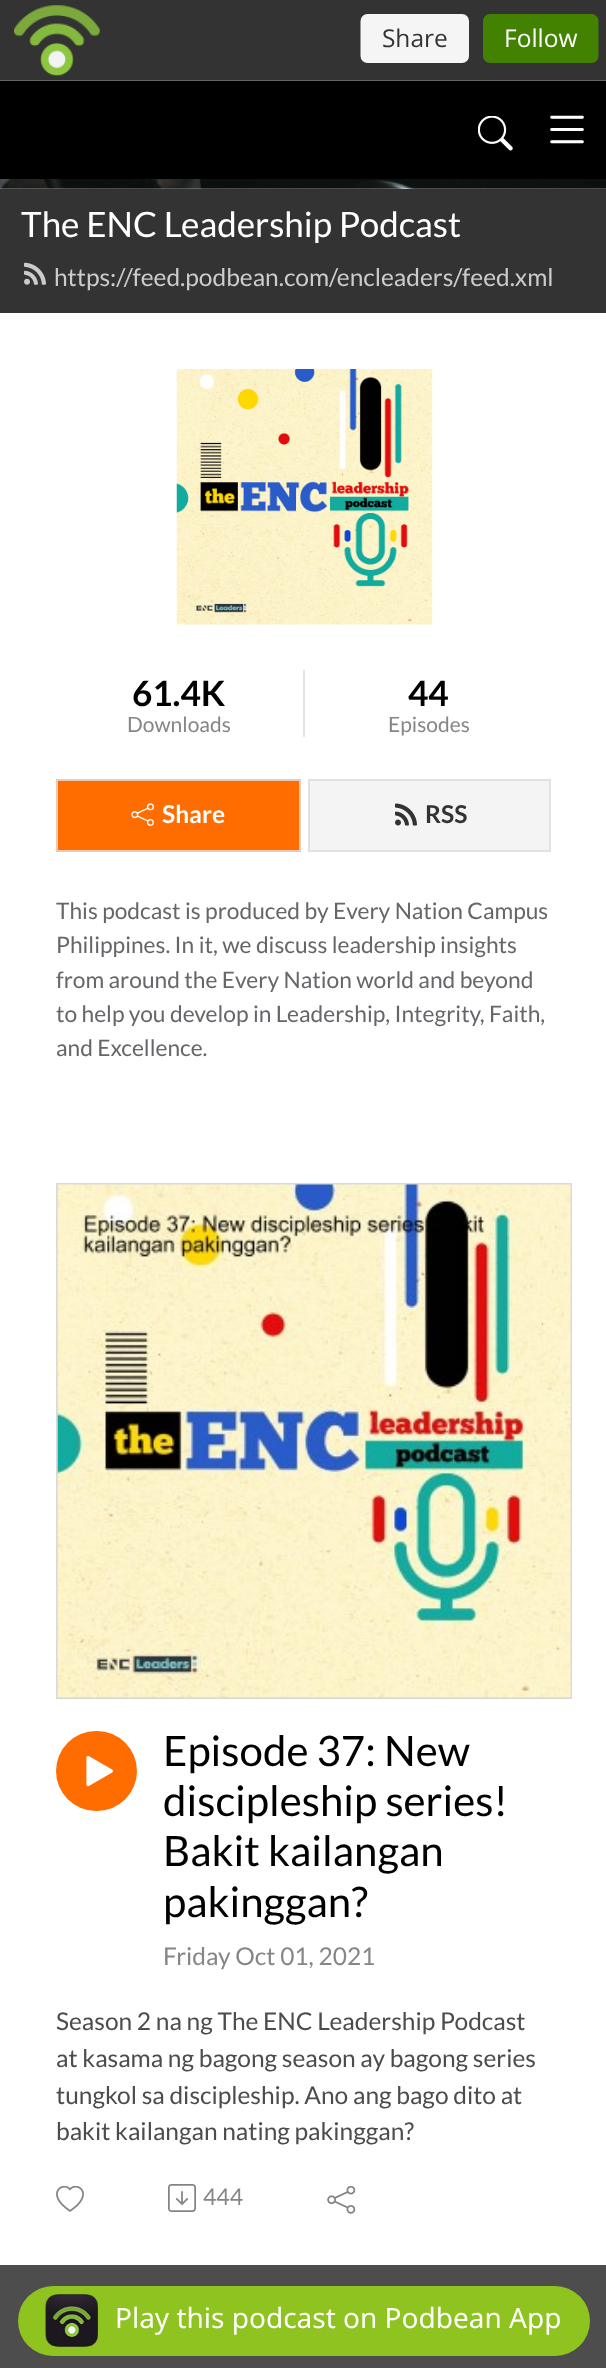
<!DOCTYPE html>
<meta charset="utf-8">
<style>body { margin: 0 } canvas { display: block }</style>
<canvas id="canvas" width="606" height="2368"></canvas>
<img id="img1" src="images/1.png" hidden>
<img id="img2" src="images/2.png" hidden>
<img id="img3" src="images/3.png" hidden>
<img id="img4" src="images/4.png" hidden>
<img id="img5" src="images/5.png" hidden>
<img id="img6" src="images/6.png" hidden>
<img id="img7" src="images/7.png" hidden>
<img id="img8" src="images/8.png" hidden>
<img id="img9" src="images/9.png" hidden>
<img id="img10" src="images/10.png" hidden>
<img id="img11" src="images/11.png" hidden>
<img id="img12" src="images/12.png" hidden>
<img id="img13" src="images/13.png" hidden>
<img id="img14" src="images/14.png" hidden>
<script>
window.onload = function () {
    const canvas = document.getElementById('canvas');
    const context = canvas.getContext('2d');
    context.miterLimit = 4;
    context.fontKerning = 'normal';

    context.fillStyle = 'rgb(255, 255, 255)';
    context.fillRect(0, 0, 606, 2368);
    context.fillStyle = 'rgb(77, 77, 77)';
    context.fillRect(0, 2265, 606, 103);
    context.fillStyle = 'rgb(51, 51, 51)';
    context.fillRect(0, 0, 606, 5);
    context.drawImage(document.getElementById('img1'), 0, 5, 606, 76);
    context.fillStyle = 'rgb(0, 0, 0)';
    context.fillRect(0, 81, 606, 98);
    context.drawImage(document.getElementById('img2'), 478, 116, 35, 35);
    context.drawImage(document.getElementById('img3'), 550, 115, 34, 29);
    context.drawImage(document.getElementById('img4'), 0, 179, 606, 10);
    context.fillStyle = 'rgb(51, 51, 51)';
    context.fillRect(0, 189, 606, 124);
    context.drawImage(document.getElementById('img5'), 24, 262, 22, 23);
    context.drawImage(document.getElementById('img6'), 176, 369, 257, 256);
    context.fillStyle = 'rgb(230, 230, 230)';
    context.fillRect(303, 670, 2, 67);
    context.fillStyle = 'rgb(255, 109, 0)';
    context.beginPath();
    context.rect(57, 780, 243, 71);
    context.fill();
    context.strokeStyle = 'rgb(232, 203, 181)';
    context.lineWidth = 2;
    context.stroke();
    context.drawImage(document.getElementById('img7'), 131, 803, 23, 23);
    context.fillStyle = 'rgb(244, 244, 244)';
    context.beginPath();
    context.rect(309, 780, 241, 71);
    context.fill();
    context.strokeStyle = 'rgb(226, 226, 226)';
    context.stroke();
    context.drawImage(document.getElementById('img8'), 395, 803, 22, 23);
    context.strokeStyle = 'rgb(218, 218, 218)';
    context.strokeRect(57, 1184, 514, 514);
    context.drawImage(document.getElementById('img9'), 57, 1184, 514, 514);
    context.fillStyle = 'rgb(255, 109, 0)';
    context.beginPath();
    context.roundRect(56, 1731, 81, 80, 40);
    context.fill();
    context.drawImage(document.getElementById('img10'), 86, 1756, 27, 31);
    context.drawImage(document.getElementById('img11'), 56, 2186, 28, 26);
    context.drawImage(document.getElementById('img12'), 168, 2184, 28, 28);
    context.drawImage(document.getElementById('img13'), 327, 2186, 29, 28);
    context.fillStyle = 'rgb(143, 195, 31)';
    context.beginPath();
    context.roundRect(18, 2286, 572, 70, 35);
    context.fill();
    context.drawImage(document.getElementById('img14'), 45, 2294, 53, 53);
    context.font = '35px Lato';
    context.fillStyle = 'rgb(255, 255, 255)';
    context.fillText('The ENC Leadership Podcast', 21, 237);
    context.font = '24.5px Lato';
    context.fillStyle = 'rgb(204, 204, 204)';
    context.fillText('https://feed.podbean.com/encleaders/feed.xml', 54, 286);
    context.font = 'bold 35px Lato';
    context.fillStyle = 'rgb(0, 0, 0)';
    context.fillText('61.4K', 132, 706);
    context.font = '21px Lato';
    context.fillStyle = 'rgb(134, 134, 134)';
    context.fillText('Downloads', 127, 732);
    context.font = 'bold 35px Lato';
    context.fillStyle = 'rgb(0, 0, 0)';
    context.fillText('44', 408, 706);
    context.font = '21px Lato';
    context.fillStyle = 'rgb(134, 134, 134)';
    context.fillText('Episodes', 388, 732);
    context.font = 'bold 24.5px Lato';
    context.fillStyle = 'rgb(255, 255, 255)';
    context.fillText('Share', 162, 823);
    context.fillStyle = 'rgb(51, 51, 51)';
    context.fillText('RSS', 425, 823);
    context.font = '22.75px Lato';
    context.fillStyle = 'rgb(100, 102, 105)';
    context.fillText('This podcast is produced by Every Nation Campus', 56, 919);
    context.fillText('Philippines. In it, we discuss leadership insights', 56, 953);
    context.fillText('from around the Every Nation world and beyond', 56, 988);
    context.fillText('to help you develop in Leadership, Integrity, Faith,', 56, 1022);
    context.fillText('and Excellence.', 56, 1056);
    context.font = '42px Lato';
    context.fillStyle = 'rgb(0, 0, 0)';
    context.fillText('Episode 37: New', 163, 1766);
    context.fillText('discipleship series!', 163, 1816);
    context.fillText('Bakit kailangan', 163, 1866);
    context.fillText('pakinggan?', 163, 1917);
    context.font = '24.5px Lato';
    context.fillStyle = 'rgb(134, 134, 134)';
    context.fillText('Friday Oct 01, 2021', 163, 1965);
    context.fillStyle = 'rgb(76, 76, 76)';
    context.fillText('Season 2 na ng The ENC Leadership Podcast', 56, 2030);
    context.fillText('at kasama ng bagong season ay bagong series', 56, 2067);
    context.fillText('tungkol sa discipleship. Ano ang bago dito at', 56, 2104);
    context.fillText('bakit kailangan nating pakinggan?', 56, 2140);
    context.font = '23px Lato';
    context.fillStyle = 'rgb(134, 134, 134)';
    context.fillText('444', 203, 2205);
    context.font = '28px Noto Sans';
    context.fillStyle = 'rgb(255, 255, 255)';
    context.fillText('Play this podcast on Podbean App', 115, 2328);
};
</script>
